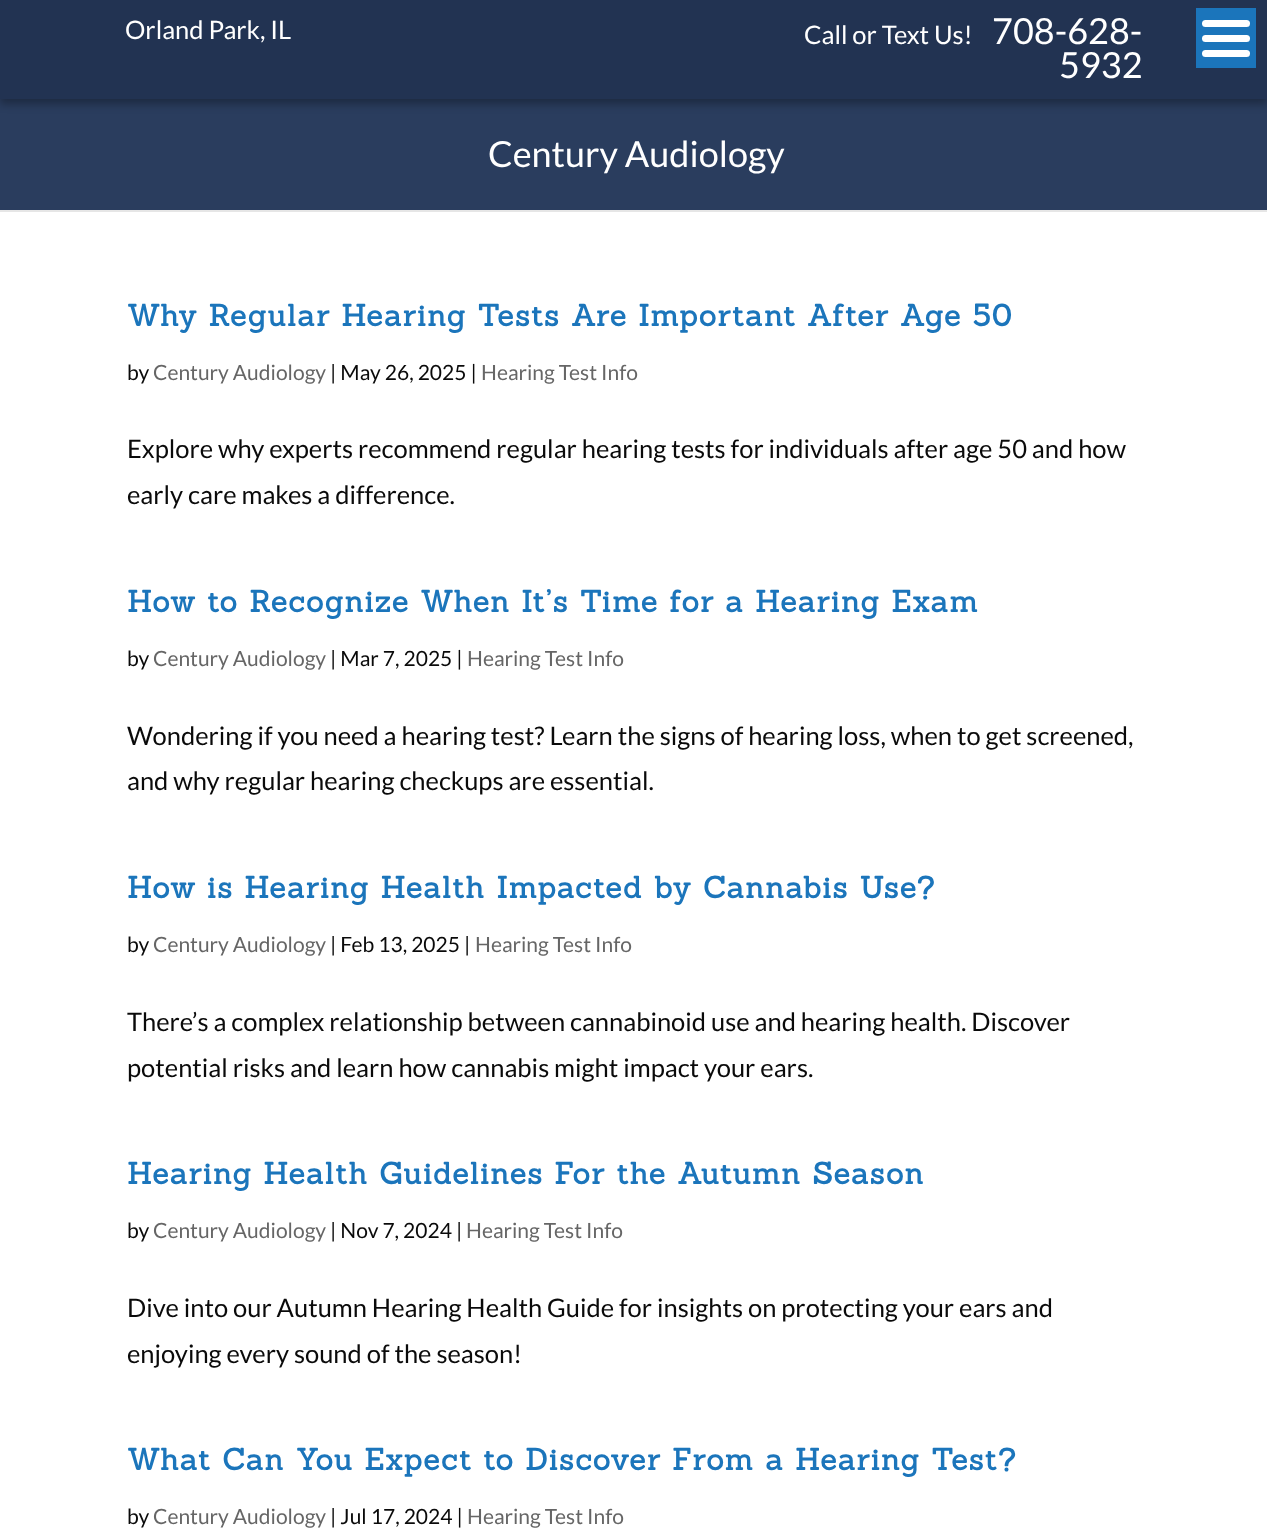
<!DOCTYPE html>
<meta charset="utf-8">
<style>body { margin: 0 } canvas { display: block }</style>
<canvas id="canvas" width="1267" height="1534"></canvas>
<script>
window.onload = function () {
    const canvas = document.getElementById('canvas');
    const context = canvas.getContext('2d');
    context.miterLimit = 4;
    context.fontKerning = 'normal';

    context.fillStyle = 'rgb(255, 255, 255)';
    context.fillRect(0, 0, 1267, 1534);
    context.fillStyle = 'rgb(42, 61, 94)';
    context.fillRect(0, 99, 1267, 111);
    context.fillStyle = 'rgba(0, 0, 0, 0.3)';
    context.filter = 'blur(4px)';
    context.beginPath();
    context.rect(0, 5, 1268, 99);
    context.fill();
    context.filter = 'none';
    context.fillStyle = 'rgb(34, 51, 82)';
    context.fillRect(0, 0, 1267, 99);
    context.fillStyle = 'rgb(230, 230, 230)';
    context.beginPath();
    context.moveTo(0, 210);
    context.lineTo(0, 212);
    context.lineTo(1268, 212);
    context.lineTo(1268, 101);
    context.lineTo(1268, 210);
    context.closePath();
    context.fill();
    context.fillStyle = 'rgb(27, 117, 187)';
    context.fillRect(1196, 8, 60, 60);
    context.fillStyle = 'rgb(255, 255, 255)';
    context.beginPath();
    context.roundRect(1202, 35, 48, 7, 3.5);
    context.fill();
    context.beginPath();
    context.roundRect(1202, 20, 48, 7, 3.5);
    context.fill();
    context.beginPath();
    context.roundRect(1202, 50, 48, 7, 3.5);
    context.fill();
    context.font = '25.5px Lato';
    context.fillText('Orland Park, IL', 125, 39);
    context.fillText('Call or Text Us!', 804, 44);
    context.font = '36px Lato';
    context.fillText('708-628-', 992, 44);
    context.fillText('5932', 1059, 78);
    context.fillText('Century Audiology', 488, 167);
    context.letterSpacing = '1.5px';
    context.font = 'bold 30px Sanchez';
    context.fillStyle = 'rgb(27, 117, 187)';
    context.fillText('Why Regular Hearing Tests Are Important After Age 50', 127, 326);
    context.letterSpacing = '0px';
    context.font = '21px Lato';
    context.fillStyle = 'rgb(10, 10, 10)';
    context.fillText('by', 127, 380);
    context.fillStyle = 'rgb(102, 102, 102)';
    context.fillText('Century Audiology', 153, 380);
    context.fillStyle = 'rgb(10, 10, 10)';
    context.fillText('| May 26, 2025 |', 330, 380);
    context.fillStyle = 'rgb(102, 102, 102)';
    context.fillText('Hearing Test Info', 481, 380);
    context.font = '25.5px Lato';
    context.fillStyle = 'rgb(10, 10, 10)';
    context.fillText('Explore why experts recommend regular hearing tests for individuals after age 50 and how', 127, 458);
    context.fillText('early care makes a difference.', 127, 504);
    context.letterSpacing = '1.5px';
    context.font = 'bold 30px Sanchez';
    context.fillStyle = 'rgb(27, 117, 187)';
    context.fillText('How to Recognize When It’s Time for a Hearing Exam', 127, 612);
    context.letterSpacing = '0px';
    context.font = '21px Lato';
    context.fillStyle = 'rgb(10, 10, 10)';
    context.fillText('by', 127, 666);
    context.fillStyle = 'rgb(102, 102, 102)';
    context.fillText('Century Audiology', 153, 666);
    context.fillStyle = 'rgb(10, 10, 10)';
    context.fillText('| Mar 7, 2025 |', 330, 666);
    context.fillStyle = 'rgb(102, 102, 102)';
    context.fillText('Hearing Test Info', 467, 666);
    context.font = '25.5px Lato';
    context.fillStyle = 'rgb(10, 10, 10)';
    context.fillText('Wondering if you need a hearing test? Learn the signs of hearing loss, when to get screened,', 127, 745);
    context.fillText('and why regular hearing checkups are essential.', 127, 790);
    context.letterSpacing = '1.5px';
    context.font = 'bold 30px Sanchez';
    context.fillStyle = 'rgb(27, 117, 187)';
    context.fillText('How is Hearing Health Impacted by Cannabis Use?', 127, 898);
    context.letterSpacing = '0px';
    context.font = '21px Lato';
    context.fillStyle = 'rgb(10, 10, 10)';
    context.fillText('by', 127, 952);
    context.fillStyle = 'rgb(102, 102, 102)';
    context.fillText('Century Audiology', 153, 952);
    context.fillStyle = 'rgb(10, 10, 10)';
    context.fillText('| Feb 13, 2025 |', 330, 952);
    context.fillStyle = 'rgb(102, 102, 102)';
    context.fillText('Hearing Test Info', 475, 952);
    context.font = '25.5px Lato';
    context.fillStyle = 'rgb(10, 10, 10)';
    context.fillText('There’s a complex relationship between cannabinoid use and hearing health. Discover', 127, 1031);
    context.fillText('potential risks and learn how cannabis might impact your ears.', 127, 1077);
    context.letterSpacing = '1.5px';
    context.font = 'bold 30px Sanchez';
    context.fillStyle = 'rgb(27, 117, 187)';
    context.fillText('Hearing Health Guidelines For the Autumn Season', 127, 1184);
    context.letterSpacing = '0px';
    context.font = '21px Lato';
    context.fillStyle = 'rgb(10, 10, 10)';
    context.fillText('by', 127, 1238);
    context.fillStyle = 'rgb(102, 102, 102)';
    context.fillText('Century Audiology', 153, 1238);
    context.fillStyle = 'rgb(10, 10, 10)';
    context.fillText('| Nov 7, 2024 |', 330, 1238);
    context.fillStyle = 'rgb(102, 102, 102)';
    context.fillText('Hearing Test Info', 466, 1238);
    context.font = '25.5px Lato';
    context.fillStyle = 'rgb(10, 10, 10)';
    context.fillText('Dive into our Autumn Hearing Health Guide for insights on protecting your ears and', 127, 1317);
    context.fillText('enjoying every sound of the season!', 127, 1363);
    context.letterSpacing = '1.5px';
    context.font = 'bold 30px Sanchez';
    context.fillStyle = 'rgb(27, 117, 187)';
    context.fillText('What Can You Expect to Discover From a Hearing Test?', 127, 1470);
    context.letterSpacing = '0px';
    context.font = '21px Lato';
    context.fillStyle = 'rgb(10, 10, 10)';
    context.fillText('by', 127, 1524);
    context.fillStyle = 'rgb(102, 102, 102)';
    context.fillText('Century Audiology', 153, 1524);
    context.fillStyle = 'rgb(10, 10, 10)';
    context.fillText('| Jul 17, 2024 |', 330, 1524);
    context.fillStyle = 'rgb(102, 102, 102)';
    context.fillText('Hearing Test Info', 467, 1524);
};
</script>
